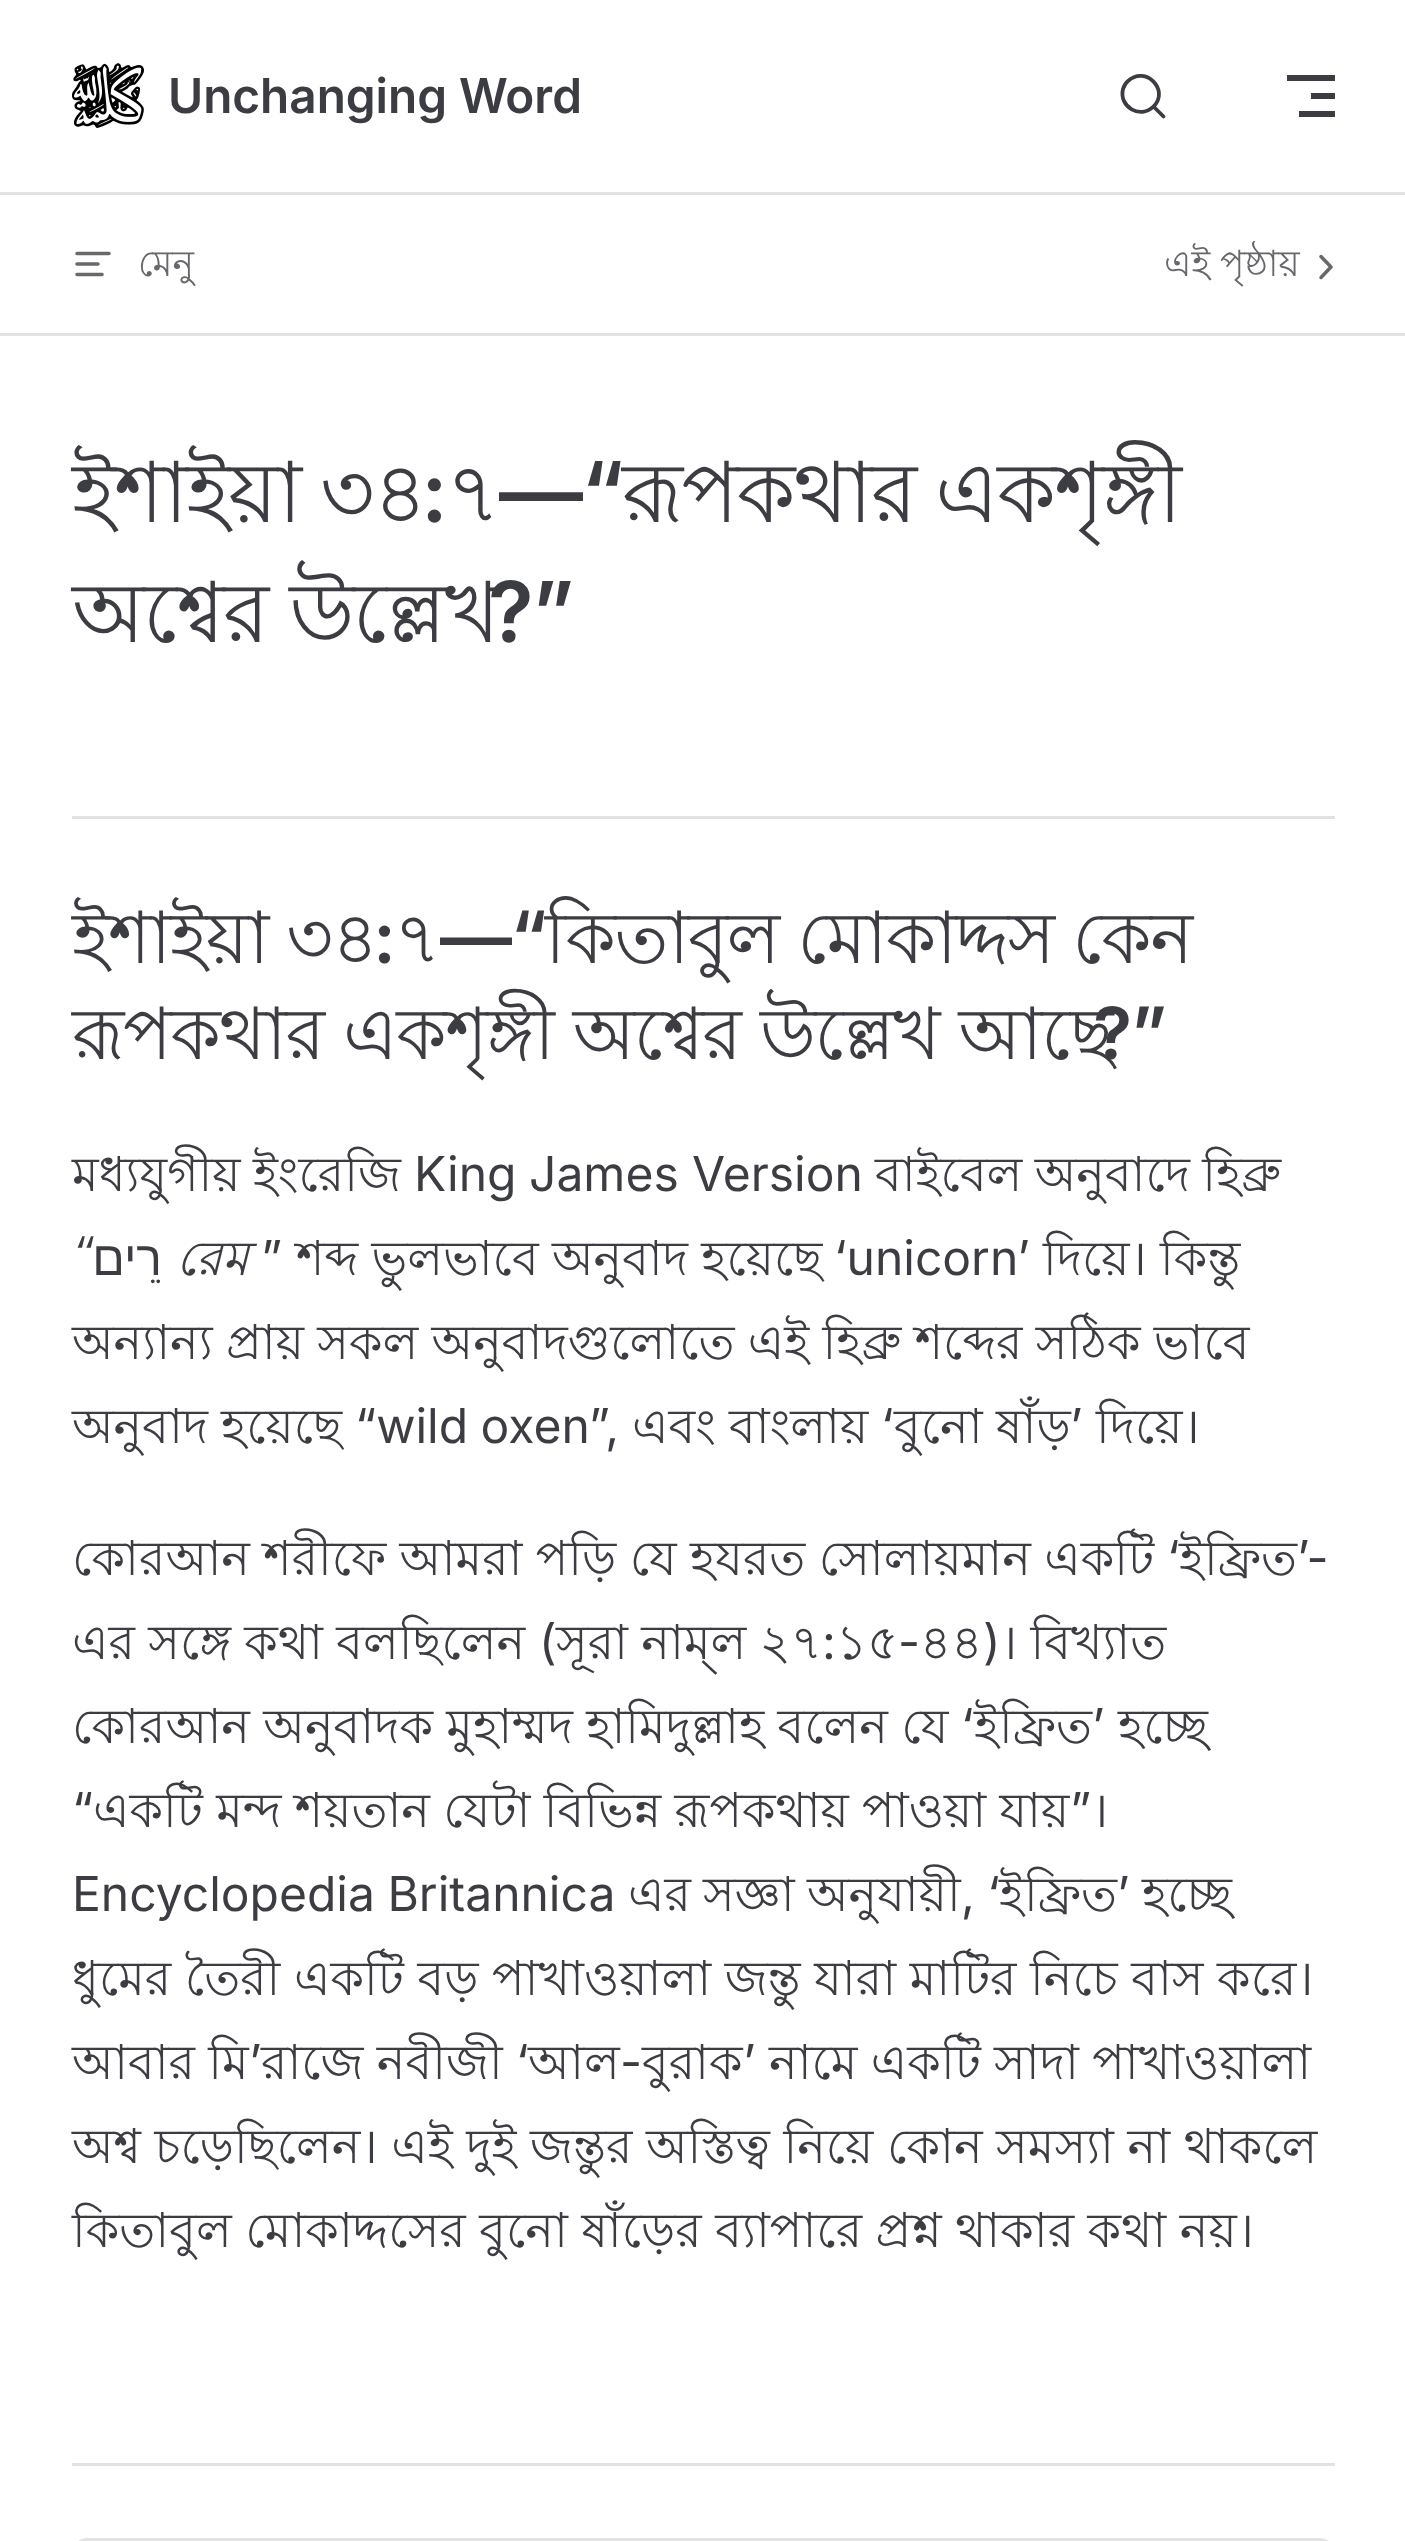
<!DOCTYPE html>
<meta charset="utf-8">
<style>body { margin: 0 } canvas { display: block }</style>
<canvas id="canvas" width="1405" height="2541"></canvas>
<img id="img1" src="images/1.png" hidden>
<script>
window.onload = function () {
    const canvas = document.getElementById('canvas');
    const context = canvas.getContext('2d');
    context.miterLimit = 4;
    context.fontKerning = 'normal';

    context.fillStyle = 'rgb(255, 255, 255)';
    context.fillRect(0, 0, 1405, 2541);
    context.drawImage(document.getElementById('img1'), 72, 63, 72, 65);
    context.beginPath();
    context.moveTo(1153.5, 106.5);
    context.lineTo(1163.5, 116.5);
    context.lineTo(1153.5, 106.5);
    context.bezierCurveTo(1140.5, 119.5, 1118.5, 107, 1123, 89);
    context.bezierCurveTo(1124, 86, 1125.5, 83, 1128, 81);
    context.bezierCurveTo(1145.5, 65, 1170, 90, 1153.5, 106.5);
    context.closePath();
    context.strokeStyle = 'rgb(60, 60, 67)';
    context.lineWidth = 3.8;
    context.lineCap = 'round';
    context.lineJoin = 'round';
    context.stroke();
    context.fillStyle = 'rgb(60, 60, 67)';
    context.fillRect(1287, 75, 48, 6);
    context.fillRect(1311, 93, 24, 6);
    context.fillRect(1299, 111, 36, 6);
    context.fillStyle = 'rgb(226, 226, 227)';
    context.fillRect(0, 192, 1405, 3);
    context.fillRect(0, 333, 1405, 3);
    context.beginPath();
    context.moveTo(109, 253.5);
    context.lineTo(77, 253.5);
    context.moveTo(98, 264);
    context.lineTo(77, 264);
    context.moveTo(102, 274.5);
    context.lineTo(77, 274.5);
    context.strokeStyle = 'rgb(103, 103, 108)';
    context.lineWidth = 3.5;
    context.stroke();
    context.beginPath();
    context.moveTo(1321, 277.5);
    context.lineTo(1331, 267);
    context.lineTo(1321, 256.5);
    context.stroke();
    context.fillRect(72, 816, 1263, 3);
    context.fillRect(72, 2463, 1263, 3);
    context.beginPath();
    context.roundRect(73.5, 2539.5, 1260, 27, 22.5);
    context.strokeStyle = 'rgb(226, 226, 227)';
    context.lineWidth = 3;
    context.lineJoin = 'miter';
    context.stroke();
    context.font = '600 48px "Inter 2"';
    context.fillStyle = 'rgb(60, 60, 67)';
    context.fillText('Unchanging Word', 168, 113);
    context.font = '36px Lohit Bengali';
    context.fillStyle = 'rgb(103, 103, 108)';
    context.fillText('মেনু', 138, 276);
    context.fillText('এই পৃষ্ঠায়', 1164, 276);
    context.letterSpacing = '-1.7px';
    context.wordSpacing = '-2px';
    context.font = '84px Lohit Bengali';
    context.fillStyle = 'rgb(60, 60, 67)';
    context.fillText('ইশাইয়া ৩৪', 72, 522);
    context.wordSpacing = '0px';
    context.font = '600 84px Inter';
    context.fillText(':', 421, 522);
    context.font = '84px Lohit Bengali';
    context.fillText('৭', 446, 522);
    context.font = '600 84px Inter';
    context.fillText('—“', 499, 522);
    context.wordSpacing = '-2px';
    context.font = '84px Lohit Bengali';
    context.fillText('রূপকথার একশৃঙ্গী', 622, 522);
    context.wordSpacing = '0px';
    context.fillText('অশ্বের উল্লেখ', 72, 642);
    context.font = '600 84px Inter';
    context.fillText('?”', 488, 642);
    context.letterSpacing = '-1.45px';
    context.font = '72px Lohit Bengali';
    context.fillText('ইশাইয়া ৩৪', 72, 963);
    context.font = '600 72px Inter';
    context.fillText(':', 373, 963);
    context.font = '72px Lohit Bengali';
    context.fillText('৭', 394, 963);
    context.font = '600 72px Inter';
    context.fillText('—“', 440, 963);
    context.font = '72px Lohit Bengali';
    context.fillText('কিতাবুল মোকাদ্দস কেন', 545, 963);
    context.wordSpacing = '1px';
    context.fillText('রূপকথার একশৃঙ্গী অশ্বের উল্লেখ আছে', 72, 1059);
    context.wordSpacing = '0px';
    context.font = '600 72px Inter';
    context.fillText('?”', 1093, 1059);
    context.letterSpacing = '0px';
    context.wordSpacing = '-1px';
    context.font = '48px Lohit Bengali';
    context.fillText('মধ্যযুগীয় ইংরেজি', 72, 1191);
    context.wordSpacing = '0px';
    context.font = '48px Inter';
    context.fillText('King', 414, 1191);
    context.fillText('James', 529, 1191);
    context.fillText('Version', 692, 1191);
    context.wordSpacing = '-1px';
    context.font = '48px Lohit Bengali';
    context.fillText('বাইবেল অনুবাদে হিব্রু', 875, 1191);
    context.wordSpacing = '0px';
    context.fillText('“', 72, 1275);
    context.direction = 'rtl';
    context.font = '48px Liberation Sans';
    context.fillText('רֵים', 162, 1275);
    context.direction = 'ltr';
    context.font = 'italic 48px Lohit Bengali';
    context.fillText('রেম', 176, 1275);
    context.font = '48px Inter';
    context.fillText('”', 261, 1275);
    context.font = '48px Lohit Bengali';
    context.fillText('শব্দ ভুলভাবে অনুবাদ হয়েছে', 296, 1275);
    context.font = '48px Inter';
    context.fillText('‘unicorn’', 834, 1275);
    context.font = '48px Lohit Bengali';
    context.fillText('দিয়ে। কিন্তু', 1043, 1275);
    context.fillText('অন্যান্য প্রায় সকল অনুবাদগুলোতে এই হিব্রু শব্দের সঠিক ভাবে', 72, 1359);
    context.fillText('অনুবাদ', 72, 1443);
    context.wordSpacing = '-1px';
    context.font = '48px Inter';
    context.fillText('“wild oxen”,', 355, 1443);
    context.wordSpacing = '0px';
    context.font = '48px Lohit Bengali';
    context.fillText('বাংলায়', 729, 1443);
    context.fillText('ষাঁড়', 996, 1443);
    context.fillText('দিয়ে।', 1096, 1443);
    context.fillText('হয়েছে', 221, 1443);
    context.fillText('এবং', 632, 1443);
    context.font = '48px Inter';
    context.fillText('‘', 881, 1443);
    context.font = '48px Lohit Bengali';
    context.fillText('বুনো', 894, 1443);
    context.font = '48px Inter';
    context.fillText('’', 1070, 1443);
    context.font = '48px Lohit Bengali';
    context.fillText('কোরআন শরীফে আমরা পড়ি যে হযরত সোলায়মান একটি', 72, 1575);
    context.font = '48px Inter';
    context.fillText('‘', 1167, 1575);
    context.font = '48px Lohit Bengali';
    context.fillText('ইফ্রিত', 1179, 1575);
    context.font = '48px Inter';
    context.fillText('’-', 1297, 1575);
    context.font = '48px Lohit Bengali';
    context.fillText('এর সঙ্গে কথা বলছিলেন', 72, 1659);
    context.font = '48px Inter';
    context.fillText('(', 539, 1659);
    context.fillText(')', 983, 1659);
    context.font = '48px Lohit Bengali';
    context.fillText('। বিখ্যাত', 1000, 1659);
    context.fillText('সূরা নাম্‌ল ২৭', 556, 1659);
    context.font = '48px Inter';
    context.fillText(':', 822, 1659);
    context.font = '48px Lohit Bengali';
    context.fillText('১৫', 836, 1659);
    context.font = '48px Inter';
    context.fillText('-', 898, 1659);
    context.font = '48px Lohit Bengali';
    context.fillText('৪৪', 920, 1659);
    context.fillText('কোরআন অনুবাদক মুহাম্মদ হামিদুল্লাহ বলেন যে', 72, 1743);
    context.font = '48px Inter';
    context.fillText('‘', 961, 1743);
    context.font = '48px Lohit Bengali';
    context.fillText('ইফ্রিত', 974, 1743);
    context.font = '48px Inter';
    context.fillText('’', 1092, 1743);
    context.font = '48px Lohit Bengali';
    context.fillText('হচ্ছে', 1118, 1743);
    context.font = '48px Inter';
    context.fillText('“', 72, 1827);
    context.font = '48px Lohit Bengali';
    context.fillText('একটি মন্দ শয়তান যেটা বিভিন্ন রূপকথায় পাওয়া যায়', 93, 1827);
    context.font = '48px Inter';
    context.fillText('”', 1070, 1827);
    context.font = '48px Lohit Bengali';
    context.fillText('।', 1091, 1827);
    context.wordSpacing = '-1px';
    context.font = '48px Inter';
    context.fillText('Encyclopedia Britannica', 72, 1911);
    context.wordSpacing = '0px';
    context.font = '48px Lohit Bengali';
    context.fillText('এর', 628, 1911);
    context.fillText('সজ্ঞা', 703, 1911);
    context.fillText('অনুযায়ী', 807, 1911);
    context.wordSpacing = '-1px';
    context.font = '48px Inter';
    context.fillText(', ‘', 961, 1911);
    context.wordSpacing = '0px';
    context.font = '48px Lohit Bengali';
    context.fillText('ইফ্রিত', 999, 1911);
    context.font = '48px Inter';
    context.fillText('’', 1117, 1911);
    context.font = '48px Lohit Bengali';
    context.fillText('হচ্ছে', 1142, 1911);
    context.wordSpacing = '0.25px';
    context.fillText('ধুমের তৈরী একটি বড় পাখাওয়ালা জন্তু যারা মাটির নিচে বাস করে।', 72, 1995);
    context.wordSpacing = '0px';
    context.fillText('আবার মি', 72, 2079);
    context.font = '48px Inter';
    context.fillText('’', 249, 2079);
    context.font = '48px Lohit Bengali';
    context.fillText('রাজে নবীজী', 261, 2079);
    context.font = '48px Inter';
    context.fillText('‘', 516, 2079);
    context.font = '48px Lohit Bengali';
    context.fillText('আল', 528, 2079);
    context.font = '48px Inter';
    context.fillText('’', 743, 2079);
    context.font = '48px Lohit Bengali';
    context.fillText('নামে একটি সাদা পাখাওয়ালা', 769, 2079);
    context.font = '48px Inter';
    context.fillText('-', 620, 2079);
    context.font = '48px Lohit Bengali';
    context.fillText('বুরাক', 642, 2079);
    context.wordSpacing = '0.25px';
    context.fillText('অশ্ব চড়েছিলেন। এই দুই জন্তুর অস্তিত্ব নিয়ে কোন সমস্যা না থাকলে', 72, 2163);
    context.fillText('কিতাবুল মোকাদ্দসের বুনো ষাঁড়ের ব্যাপারে প্রশ্ন থাকার কথা নয়।', 72, 2247);
};
</script>
